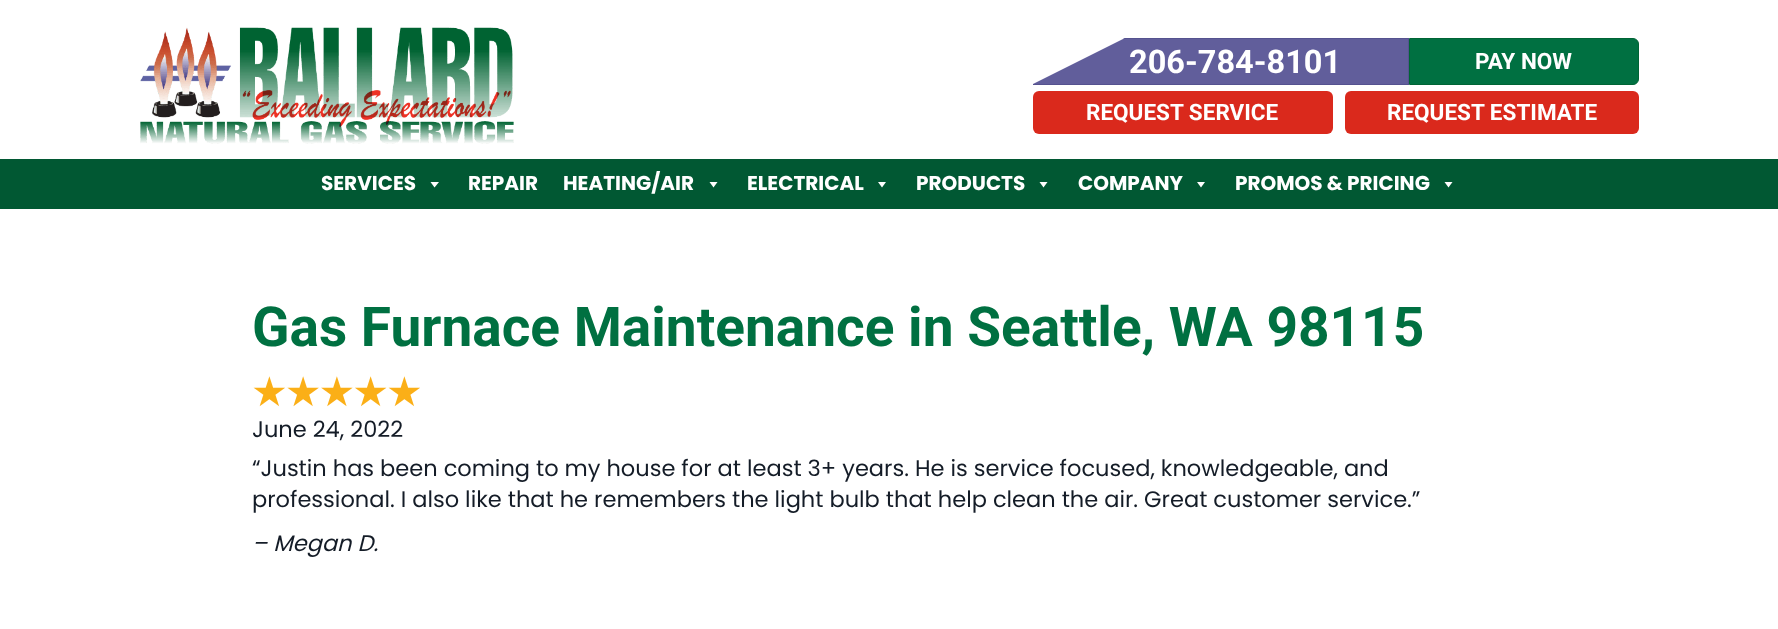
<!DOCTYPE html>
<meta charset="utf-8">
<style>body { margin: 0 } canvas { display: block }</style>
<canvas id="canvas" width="1778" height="629"></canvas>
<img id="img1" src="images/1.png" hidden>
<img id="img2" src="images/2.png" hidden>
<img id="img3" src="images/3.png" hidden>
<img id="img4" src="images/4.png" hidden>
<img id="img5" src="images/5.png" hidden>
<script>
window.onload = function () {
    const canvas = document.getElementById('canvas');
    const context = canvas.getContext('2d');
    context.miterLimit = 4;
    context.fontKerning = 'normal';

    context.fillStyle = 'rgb(255, 255, 255)';
    context.fillRect(0, 0, 1778, 629);
    context.drawImage(document.getElementById('img1'), 140, 27, 374, 117);
    context.fillStyle = 'rgb(97, 94, 155)';
    context.beginPath();
    context.moveTo(1033, 84);
    context.lineTo(1125, 38);
    context.lineTo(1409, 38);
    context.lineTo(1409, 85);
    context.lineTo(1033, 85);
    context.closePath();
    context.fill();
    context.fillStyle = 'rgb(85, 82, 143)';
    context.beginPath();
    context.moveTo(1033, 85);
    context.lineTo(1409, 85);
    context.lineTo(1409, 38);
    context.lineTo(1125, 38);
    context.lineTo(1123, 39);
    context.lineTo(1408, 39);
    context.lineTo(1408, 84);
    context.lineTo(1034, 84);
    context.lineTo(1033, 84);
    context.closePath();
    context.fill();
    context.fillStyle = 'rgb(0, 112, 65)';
    context.beginPath();
    context.roundRect(1409.5, 38.5, 229, 46, [0, 5.5, 5.5, 0]);
    context.fill();
    context.strokeStyle = 'rgb(0, 100, 53)';
    context.stroke();
    context.fillStyle = 'rgb(218, 41, 28)';
    context.beginPath();
    context.roundRect(1033, 91, 300, 43, 6);
    context.fill();
    context.beginPath();
    context.roundRect(1345, 91, 294, 43, 6);
    context.fill();
    context.fillStyle = 'rgb(1, 88, 51)';
    context.fillRect(0, 159, 1778, 50);
    context.fillStyle = 'rgb(255, 255, 255)';
    context.beginPath();
    context.moveTo(439, 182);
    context.lineTo(434.5, 187.5);
    context.lineTo(430.5, 182);
    context.closePath();
    context.fill();
    context.beginPath();
    context.moveTo(717.5, 182);
    context.lineTo(713.5, 187.5);
    context.lineTo(709.5, 182);
    context.closePath();
    context.fill();
    context.beginPath();
    context.moveTo(886, 182);
    context.lineTo(882, 187.5);
    context.lineTo(878, 182);
    context.closePath();
    context.fill();
    context.beginPath();
    context.moveTo(1047.5, 182);
    context.lineTo(1043.5, 187.5);
    context.lineTo(1039.5, 182);
    context.closePath();
    context.fill();
    context.beginPath();
    context.moveTo(1205, 182);
    context.lineTo(1201, 187.5);
    context.lineTo(1197, 182);
    context.closePath();
    context.fill();
    context.beginPath();
    context.moveTo(1452.5, 182);
    context.lineTo(1448.5, 187.5);
    context.lineTo(1444.5, 182);
    context.closePath();
    context.fill();
    context.drawImage(document.getElementById('img2'), 253, 376, 32, 31);
    context.drawImage(document.getElementById('img3'), 287, 376, 32, 31);
    context.drawImage(document.getElementById('img4'), 321, 376, 32, 31);
    context.drawImage(document.getElementById('img5'), 355, 376, 32, 31);
    context.drawImage(document.getElementById('img2'), 388, 376, 32, 31);
    context.font = 'bold 32.5px Roboto';
    context.fillText('206-784-8101', 1129, 73);
    context.font = 'bold 22.5px Roboto';
    context.fillText('PAY NOW', 1475, 69);
    context.fillText('REQUEST SERVICE', 1086, 120);
    context.fillText('REQUEST ESTIMATE', 1387, 120);
    context.font = 'bold 20px Poppins';
    context.fillText('SERVICES', 321, 190);
    context.fillText('REPAIR', 468, 190);
    context.fillText('HEATING/AIR', 563, 190);
    context.fillText('ELECTRICAL', 747, 190);
    context.fillText('PRODUCTS', 916, 190);
    context.fillText('COMPANY', 1078, 190);
    context.fillText('PROMOS & PRICING', 1235, 190);
    context.font = 'bold 55px Roboto';
    context.fillStyle = 'rgb(0, 112, 65)';
    context.fillText('Gas Furnace Maintenance in Seattle, WA 98115', 252, 346);
    context.font = '22.5px Poppins';
    context.fillStyle = 'rgb(20, 28, 39)';
    context.fillText('June 24, 2022', 252, 437);
    context.fillText('“Justin has been coming to my house for at least 3+ years. He is service focused, knowledgeable, and', 252, 476);
    context.fillText('professional. I also like that he remembers the light bulb that help clean the air. Great customer service.”', 252, 507);
    context.font = 'italic 22.5px Poppins';
    context.fillText('– Megan D.', 252, 551);
};
</script>
